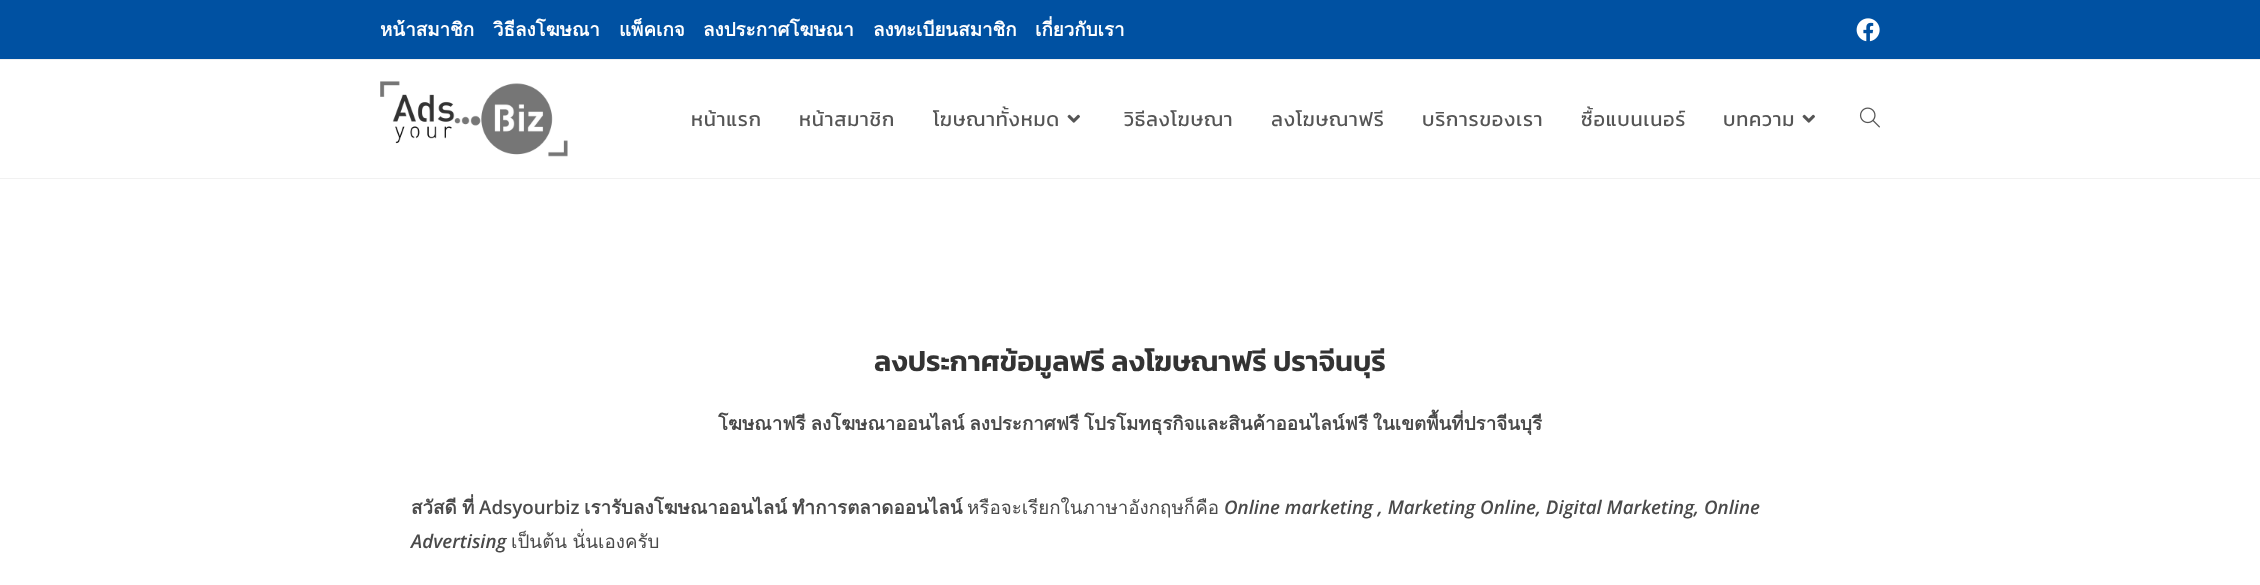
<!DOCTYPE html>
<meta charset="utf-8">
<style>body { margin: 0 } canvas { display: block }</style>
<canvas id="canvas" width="2260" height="585"></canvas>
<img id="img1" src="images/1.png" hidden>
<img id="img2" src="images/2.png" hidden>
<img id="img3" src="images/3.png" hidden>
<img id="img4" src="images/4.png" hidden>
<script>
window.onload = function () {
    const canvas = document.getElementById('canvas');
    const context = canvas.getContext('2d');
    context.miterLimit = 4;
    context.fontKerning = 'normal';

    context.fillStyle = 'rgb(255, 255, 255)';
    context.fillRect(0, 0, 2260, 585);
    context.fillStyle = 'rgb(0, 81, 162)';
    context.fillRect(0, 0, 2260, 59);
    context.fillStyle = 'rgb(241, 241, 241)';
    context.fillRect(0, 59, 2260, 1);
    context.drawImage(document.getElementById('img1'), 1856, 18, 24, 24);
    context.fillRect(0, 178, 2260, 1);
    context.drawImage(document.getElementById('img2'), 380, 81, 188, 76);
    context.drawImage(document.getElementById('img3'), 1067, 114, 13, 9);
    context.drawImage(document.getElementById('img3'), 1802, 114, 13, 9);
    context.drawImage(document.getElementById('img4'), 1859, 107, 21, 21);
    context.font = 'bold 18.75px Loma';
    context.fillStyle = 'rgb(255, 255, 255)';
    context.fillText('หน้าสมาชิก', 380, 36);
    context.fillText('วิธีลงโฆษณา', 493, 36);
    context.fillText('แพ็คเกจ', 619, 36);
    context.fillText('ลงประกาศโฆษณา', 703, 36);
    context.fillText('ลงทะเบียนสมาชิก', 873, 36);
    context.fillText('เกี่ยวกับเรา', 1035, 36);
    context.letterSpacing = '0.75px';
    context.font = '20px Kanit';
    context.fillStyle = 'rgb(85, 85, 85)';
    context.fillText('หน้าแรก', 691, 126);
    context.fillText('หน้าสมาชิก', 799, 126);
    context.fillText('โฆษณาทั้งหมด', 933, 126);
    context.fillText('วิธีลงโฆษณา', 1124, 126);
    context.fillText('ลงโฆษณาฟรี', 1271, 126);
    context.fillText('บริการของเรา', 1422, 126);
    context.fillText('ซื้อแบนเนอร์', 1581, 126);
    context.fillText('บทความ', 1723, 126);
    context.letterSpacing = '0px';
    context.font = '600 28.75px Kanit';
    context.fillStyle = 'rgb(51, 51, 51)';
    context.fillText('ลงประกาศข้อมูลฟรี ลงโฆษณาฟรี ปราจีนบุรี', 874, 371);
    context.wordSpacing = '-1.5px';
    context.font = 'bold 18.75px Loma';
    context.fillStyle = 'rgb(74, 74, 74)';
    context.fillText('โฆษณาฟรี ลงโฆษณาออนไลน์ ลงประกาศฟรี โปรโมทธุรกิจและสินค้าออนไลน์ฟรี ในเขตพื้นที่ปราจีนบุรี', 718, 430);
    context.wordSpacing = '-1px';
    context.fillText('สวัสดี ที่', 411, 514);
    context.wordSpacing = '0px';
    context.font = '600 18.75px Open Sans';
    context.fillText('Adsyourbiz', 479, 514);
    context.wordSpacing = '-1px';
    context.font = 'bold 18.75px Loma';
    context.fillText('เรารับลงโฆษณาออนไลน์ ทำการตลาดออนไลน์', 584, 514);
    context.wordSpacing = '0px';
    context.font = '18.75px Loma';
    context.fillText('หรือจะเรียกในภาษาอังกฤษก็คือ', 967, 514);
    context.font = 'italic 600 18.75px Open Sans';
    context.fillText('Online marketing , Marketing Online, Digital Marketing, Online', 1224, 514);
    context.fillText('Advertising', 411, 548);
    context.wordSpacing = '-1px';
    context.font = '18.75px Loma';
    context.fillText('เป็นต้น นั่นเองครับ', 511, 548);
};
</script>
